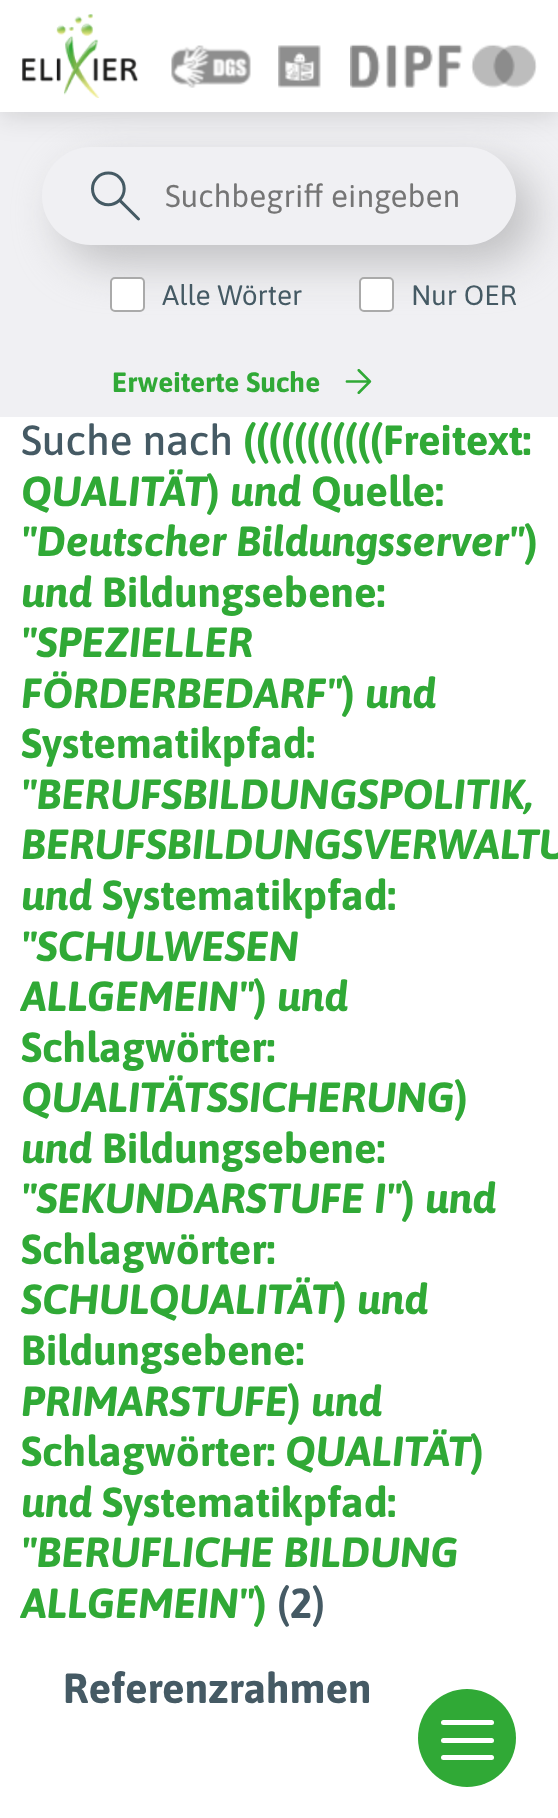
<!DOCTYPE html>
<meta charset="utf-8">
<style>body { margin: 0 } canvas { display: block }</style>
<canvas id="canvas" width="558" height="1818"></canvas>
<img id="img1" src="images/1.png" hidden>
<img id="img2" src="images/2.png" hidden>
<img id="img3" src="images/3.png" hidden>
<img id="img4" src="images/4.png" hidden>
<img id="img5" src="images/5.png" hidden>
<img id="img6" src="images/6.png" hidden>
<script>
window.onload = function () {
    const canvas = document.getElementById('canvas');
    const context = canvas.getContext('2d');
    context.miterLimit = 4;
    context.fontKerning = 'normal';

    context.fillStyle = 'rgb(255, 255, 255)';
    context.fillRect(0, 0, 558, 1818);
    context.fillStyle = 'rgb(240, 240, 243)';
    context.fillRect(0, 112, 558, 305);
    context.fillStyle = 'rgba(18, 18, 18, 0.16)';
    context.filter = 'blur(14px)';
    context.beginPath();
    context.rect(0, 2, 558, 112);
    context.fill();
    context.filter = 'none';
    context.save();
    context.beginPath();
    context.moveTo(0, 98);
    context.lineTo(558, 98);
    context.lineTo(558, 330);
    context.lineTo(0, 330);
    context.closePath();
    context.moveTo(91, 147);
    context.lineTo(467, 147);
    context.bezierCurveTo(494, 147, 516, 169, 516, 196);
    context.bezierCurveTo(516, 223, 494, 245, 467, 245);
    context.lineTo(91, 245);
    context.bezierCurveTo(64, 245, 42, 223, 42, 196);
    context.bezierCurveTo(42, 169, 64, 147, 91, 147);
    context.closePath();
    context.clip('evenodd');
    context.fillStyle = 'rgb(192, 192, 194)';
    context.filter = 'blur(22px)';
    context.beginPath();
    context.roundRect(60, 165, 474, 98, 49);
    context.fill();
    context.filter = 'none';
    context.restore();
    context.fillStyle = 'rgb(255, 255, 255)';
    context.fillRect(0, 0, 558, 112);
    context.drawImage(document.getElementById('img1'), 21, 14, 118, 84);
    context.drawImage(document.getElementById('img2'), 171, 45, 80, 43);
    context.drawImage(document.getElementById('img3'), 278, 45, 43, 43);
    context.drawImage(document.getElementById('img4'), 350, 44, 187, 44);
    context.drawImage(document.getElementById('img5'), 91, 171, 49, 50);
    context.beginPath();
    context.roundRect(111, 278, 33, 33, 4);
    context.fill();
    context.strokeStyle = 'rgb(170, 170, 170)';
    context.lineWidth = 2;
    context.stroke();
    context.beginPath();
    context.roundRect(360, 278, 33, 33, 4);
    context.fill();
    context.stroke();
    context.drawImage(document.getElementById('img6'), 345, 369, 27, 25);
    context.fillStyle = 'rgb(48, 169, 54)';
    context.beginPath();
    context.arc(467, 1738, 49, 0, 2 * Math.PI);
    context.fill();
    context.fillStyle = 'rgb(255, 255, 255)';
    context.beginPath();
    context.roundRect(441, 1738, 53, 5, 2.5);
    context.fill();
    context.beginPath();
    context.roundRect(441, 1720, 53, 5, 2.5);
    context.fill();
    context.beginPath();
    context.roundRect(441, 1755, 53, 5, 2.5);
    context.fill();
    context.font = '31.5px Asap';
    context.fillStyle = 'rgb(117, 117, 117)';
    context.fillText('Suchbegriff eingeben', 165, 207);
    context.font = '28px Asap';
    context.fillStyle = 'rgb(69, 90, 100)';
    context.fillText('Alle Wörter', 162, 305);
    context.fillText('Nur OER', 411, 305);
    context.font = 'bold 28px Asap';
    context.fillStyle = 'rgb(48, 169, 54)';
    context.fillText('Erweiterte Suche', 112, 392);
    context.font = '500 42.1px Asap';
    context.fillStyle = 'rgb(69, 90, 100)';
    context.fillText('Suche nach', 21, 455);
    context.font = '900 42.1px Asap';
    context.fillStyle = 'rgb(48, 169, 54)';
    context.fillText('(((((((((((', 243, 455);
    context.font = 'bold 42.1px Asap';
    context.fillText('Freitext:', 383, 455);
    context.font = 'italic bold 42.1px Asap';
    context.fillText('QUALITÄT', 21, 506);
    context.font = '900 42.1px Asap';
    context.fillText(')', 207, 506);
    context.font = 'italic bold 42.1px Asap';
    context.fillText('und', 230, 506);
    context.font = 'bold 42.1px Asap';
    context.fillText('Quelle:', 311, 506);
    context.font = 'italic bold 42.1px Asap';
    context.fillText('"Deutscher Bildungsserver"', 21, 556);
    context.font = '900 42.1px Asap';
    context.fillText(')', 525, 556);
    context.font = 'italic bold 42.1px Asap';
    context.fillText('und', 21, 607);
    context.font = 'bold 42.1px Asap';
    context.fillText('Bildungsebene:', 102, 607);
    context.font = 'italic bold 42.1px Asap';
    context.fillText('"SPEZIELLER', 21, 657);
    context.fillText('FÖRDERBEDARF"', 21, 708);
    context.font = '900 42.1px Asap';
    context.fillText(')', 342, 708);
    context.font = 'italic bold 42.1px Asap';
    context.fillText('und', 365, 708);
    context.font = 'bold 42.1px Asap';
    context.fillText('Systematikpfad:', 21, 758);
    context.font = 'italic bold 42.1px Asap';
    context.fillText('"BERUFSBILDUNGSPOLITIK,', 21, 809);
    context.fillText('BERUFSBILDUNGSVERWALTU', 21, 859);
    context.fillText('und', 21, 910);
    context.font = 'bold 42.1px Asap';
    context.fillText('Systematikpfad:', 102, 910);
    context.font = 'italic bold 42.1px Asap';
    context.fillText('"SCHULWESEN', 21, 961);
    context.fillText('ALLGEMEIN"', 21, 1011);
    context.font = '900 42.1px Asap';
    context.fillText(')', 254, 1011);
    context.font = 'italic bold 42.1px Asap';
    context.fillText('und', 277, 1011);
    context.font = 'bold 42.1px Asap';
    context.fillText('Schlagwörter:', 21, 1062);
    context.font = 'italic bold 42.1px Asap';
    context.fillText('QUALITÄTSSICHERUNG', 21, 1112);
    context.font = '900 42.1px Asap';
    context.fillText(')', 455, 1112);
    context.font = 'italic bold 42.1px Asap';
    context.fillText('und', 21, 1163);
    context.font = 'bold 42.1px Asap';
    context.fillText('Bildungsebene:', 102, 1163);
    context.font = 'italic bold 42.1px Asap';
    context.fillText('"SEKUNDARSTUFE I"', 21, 1213);
    context.font = '900 42.1px Asap';
    context.fillText(')', 402, 1213);
    context.font = 'italic bold 42.1px Asap';
    context.fillText('und', 425, 1213);
    context.font = 'bold 42.1px Asap';
    context.fillText('Schlagwörter:', 21, 1264);
    context.font = 'italic bold 42.1px Asap';
    context.fillText('SCHULQUALITÄT', 21, 1314);
    context.font = '900 42.1px Asap';
    context.fillText(')', 334, 1314);
    context.font = 'italic bold 42.1px Asap';
    context.fillText('und', 357, 1314);
    context.font = 'bold 42.1px Asap';
    context.fillText('Bildungsebene:', 21, 1365);
    context.font = 'italic bold 42.1px Asap';
    context.fillText('PRIMARSTUFE', 21, 1416);
    context.font = '900 42.1px Asap';
    context.fillText(')', 288, 1416);
    context.font = 'italic bold 42.1px Asap';
    context.fillText('und', 311, 1416);
    context.font = 'bold 42.1px Asap';
    context.fillText('Schlagwörter:', 21, 1466);
    context.font = 'italic bold 42.1px Asap';
    context.fillText('QUALITÄT', 285, 1466);
    context.font = '900 42.1px Asap';
    context.fillText(')', 471, 1466);
    context.font = 'italic bold 42.1px Asap';
    context.fillText('und', 21, 1517);
    context.font = 'bold 42.1px Asap';
    context.fillText('Systematikpfad:', 102, 1517);
    context.font = 'italic bold 42.1px Asap';
    context.fillText('"BERUFLICHE BILDUNG', 21, 1567);
    context.fillText('ALLGEMEIN"', 21, 1618);
    context.font = '900 42.1px Asap';
    context.fillText(')', 254, 1618);
    context.font = 'bold 42.1px Asap';
    context.fillStyle = 'rgb(69, 90, 100)';
    context.fillText('(2)', 277, 1618);
    context.font = 'bold 42px Asap';
    context.fillText('Referenzrahmen', 63, 1703);
};
</script>
